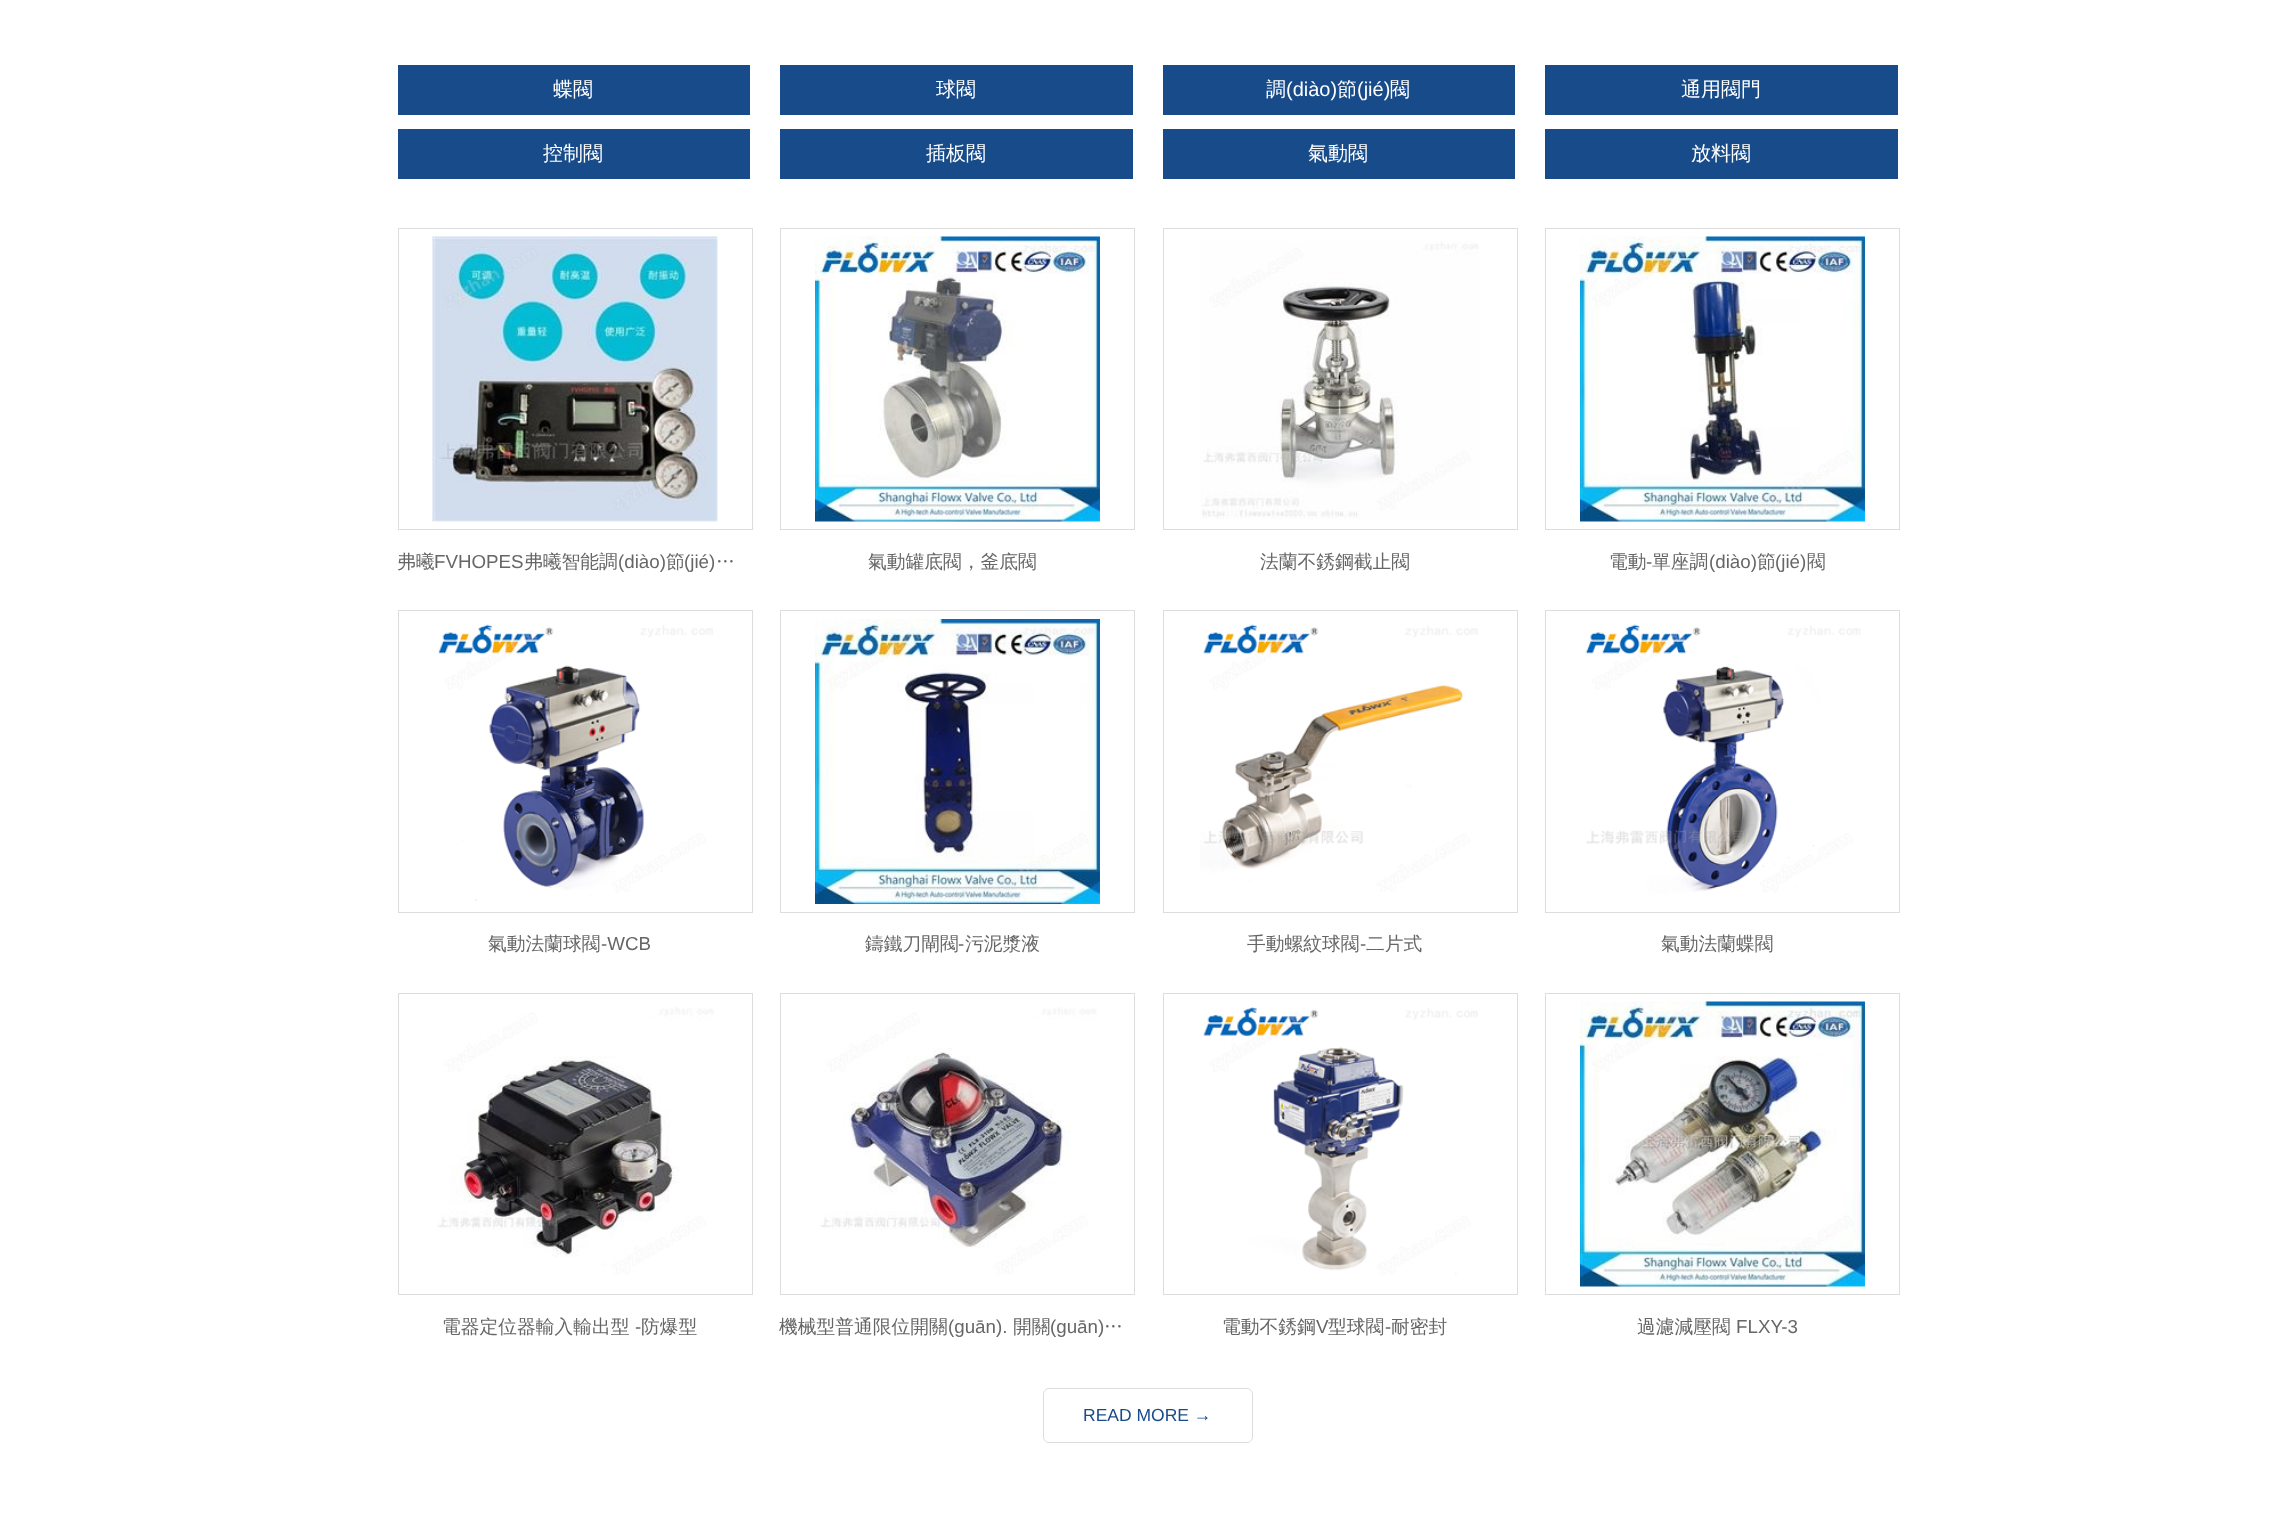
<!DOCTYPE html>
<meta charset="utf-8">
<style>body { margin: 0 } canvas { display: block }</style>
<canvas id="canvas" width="2293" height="1538"></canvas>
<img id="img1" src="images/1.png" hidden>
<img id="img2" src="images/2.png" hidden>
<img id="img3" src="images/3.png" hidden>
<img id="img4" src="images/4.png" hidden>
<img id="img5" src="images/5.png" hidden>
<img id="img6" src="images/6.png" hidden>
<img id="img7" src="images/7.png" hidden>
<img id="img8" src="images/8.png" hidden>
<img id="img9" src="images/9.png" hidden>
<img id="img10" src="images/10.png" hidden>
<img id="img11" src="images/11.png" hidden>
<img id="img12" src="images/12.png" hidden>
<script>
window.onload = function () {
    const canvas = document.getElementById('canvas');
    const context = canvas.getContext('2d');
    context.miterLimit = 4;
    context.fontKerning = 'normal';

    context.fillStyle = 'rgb(255, 255, 255)';
    context.fillRect(0, 0, 2293, 1538);
    context.fillStyle = 'rgb(24, 75, 138)';
    context.fillRect(398, 65, 352, 50);
    context.fillRect(780, 65, 353, 50);
    context.fillRect(1163, 65, 352, 50);
    context.fillRect(1545, 65, 353, 50);
    context.fillRect(398, 129, 352, 50);
    context.fillRect(780, 129, 353, 50);
    context.fillRect(1163, 129, 352, 50);
    context.fillRect(1545, 129, 353, 50);
    context.strokeStyle = 'rgb(221, 221, 221)';
    context.strokeRect(398.5, 228.5, 354, 301);
    context.drawImage(document.getElementById('img1'), 432, 236, 286, 286);
    context.strokeRect(780.5, 228.5, 354, 301);
    context.drawImage(document.getElementById('img2'), 815, 236, 285, 286);
    context.strokeRect(1163.5, 228.5, 354, 301);
    context.drawImage(document.getElementById('img3'), 1200, 241, 279, 278);
    context.strokeRect(1545.5, 228.5, 354, 301);
    context.drawImage(document.getElementById('img4'), 1580, 236, 285, 286);
    context.strokeRect(398.5, 610.5, 354, 302);
    context.drawImage(document.getElementById('img5'), 438, 624, 275, 277);
    context.strokeRect(780.5, 610.5, 354, 302);
    context.drawImage(document.getElementById('img6'), 815, 619, 285, 285);
    context.strokeRect(1163.5, 610.5, 354, 302);
    context.drawImage(document.getElementById('img7'), 1200, 624, 278, 268);
    context.strokeRect(1545.5, 610.5, 354, 302);
    context.drawImage(document.getElementById('img8'), 1585, 624, 276, 274);
    context.strokeRect(398.5, 993.5, 354, 301);
    context.drawImage(document.getElementById('img9'), 437, 1007, 277, 268);
    context.strokeRect(780.5, 993.5, 354, 301);
    context.drawImage(document.getElementById('img10'), 820, 1007, 277, 268);
    context.strokeRect(1163.5, 993.5, 354, 301);
    context.drawImage(document.getElementById('img11'), 1203, 1007, 275, 268);
    context.strokeRect(1545.5, 993.5, 354, 301);
    context.drawImage(document.getElementById('img12'), 1580, 1001, 285, 286);
    context.beginPath();
    context.roundRect(1043.5, 1388.5, 209, 54, 5.5);
    context.stroke();
    context.font = '500 20px WenQuanYi Zen Hei';
    context.fillStyle = 'rgb(255, 255, 255)';
    context.fillText('蝶閥', 553, 96);
    context.fillText('球閥', 936, 96);
    context.fillText('調', 1266, 96);
    context.font = '20px Liberation Sans';
    context.fillText('(diào)', 1286, 96);
    context.font = '500 20px WenQuanYi Zen Hei';
    context.fillText('節', 1337, 96);
    context.font = '20px Liberation Sans';
    context.fillText('(jié)', 1357, 96);
    context.font = '500 20px WenQuanYi Zen Hei';
    context.fillText('閥', 1390, 96);
    context.fillText('通用閥門', 1681, 96);
    context.fillText('控制閥', 543, 160);
    context.fillText('插板閥', 926, 160);
    context.fillText('氣動閥', 1308, 160);
    context.fillText('放料閥', 1691, 160);
    context.font = '500 18.75px WenQuanYi Zen Hei';
    context.fillStyle = 'rgb(102, 102, 102)';
    context.fillText('弗曦', 397, 568);
    context.font = '18.75px Liberation Sans';
    context.fillText('FVHOPES', 434, 568);
    context.font = '500 18.75px WenQuanYi Zen Hei';
    context.fillText('弗曦智能調', 524, 568);
    context.font = '18.75px Liberation Sans';
    context.fillText('(diào)', 618, 568);
    context.font = '500 18.75px WenQuanYi Zen Hei';
    context.fillText('節', 666, 568);
    context.font = '18.75px Liberation Sans';
    context.fillText('(jié)', 684, 568);
    context.font = '500 18.75px WenQuanYi Zen Hei';
    context.fillText('…', 716, 568);
    context.fillText('氣動罐底閥，釜底閥', 868, 568);
    context.fillText('法蘭不銹鋼截止閥', 1260, 568);
    context.fillText('電動', 1609, 568);
    context.font = '18.75px Liberation Sans';
    context.fillText('-', 1646, 568);
    context.font = '500 18.75px WenQuanYi Zen Hei';
    context.fillText('單座調', 1652, 568);
    context.font = '18.75px Liberation Sans';
    context.fillText('(diào)', 1709, 568);
    context.font = '500 18.75px WenQuanYi Zen Hei';
    context.fillText('節', 1757, 568);
    context.font = '18.75px Liberation Sans';
    context.fillText('(jié)', 1775, 568);
    context.font = '500 18.75px WenQuanYi Zen Hei';
    context.fillText('閥', 1807, 568);
    context.fillText('氣動法蘭球閥', 488, 950);
    context.font = '18.75px Liberation Sans';
    context.fillText('-WCB', 601, 950);
    context.font = '500 18.75px WenQuanYi Zen Hei';
    context.fillText('鑄鐵刀閘閥', 865, 950);
    context.font = '18.75px Liberation Sans';
    context.fillText('-', 958, 950);
    context.font = '500 18.75px WenQuanYi Zen Hei';
    context.fillText('污泥漿液', 965, 950);
    context.fillText('手動螺紋球閥', 1247, 950);
    context.font = '18.75px Liberation Sans';
    context.fillText('-', 1360, 950);
    context.font = '500 18.75px WenQuanYi Zen Hei';
    context.fillText('二片式', 1366, 950);
    context.fillText('氣動法蘭蝶閥', 1661, 950);
    context.fillText('電器定位器輸入輸出型', 442, 1333);
    context.font = '18.75px Liberation Sans';
    context.fillText('-', 635, 1333);
    context.font = '500 18.75px WenQuanYi Zen Hei';
    context.fillText('防爆型', 641, 1333);
    context.fillText('機械型普通限位開關', 779, 1333);
    context.font = '18.75px Liberation Sans';
    context.fillText('(guān).', 948, 1333);
    context.font = '500 18.75px WenQuanYi Zen Hei';
    context.fillText('開關', 1013, 1333);
    context.font = '18.75px Liberation Sans';
    context.fillText('(guān)', 1050, 1333);
    context.font = '500 18.75px WenQuanYi Zen Hei';
    context.fillText('…', 1104, 1333);
    context.fillText('電動不銹鋼', 1222, 1333);
    context.font = '18.75px Liberation Sans';
    context.fillText('V', 1316, 1333);
    context.font = '500 18.75px WenQuanYi Zen Hei';
    context.fillText('型球閥', 1328, 1333);
    context.font = '18.75px Liberation Sans';
    context.fillText('-', 1385, 1333);
    context.font = '500 18.75px WenQuanYi Zen Hei';
    context.fillText('耐密封', 1391, 1333);
    context.fillText('過濾減壓閥', 1637, 1333);
    context.font = '18.75px Liberation Sans';
    context.fillText('FLXY-3', 1736, 1333);
    context.font = '17.5px Liberation Sans';
    context.fillStyle = 'rgb(24, 75, 138)';
    context.fillText('READ MORE →', 1083, 1421);
};
</script>
